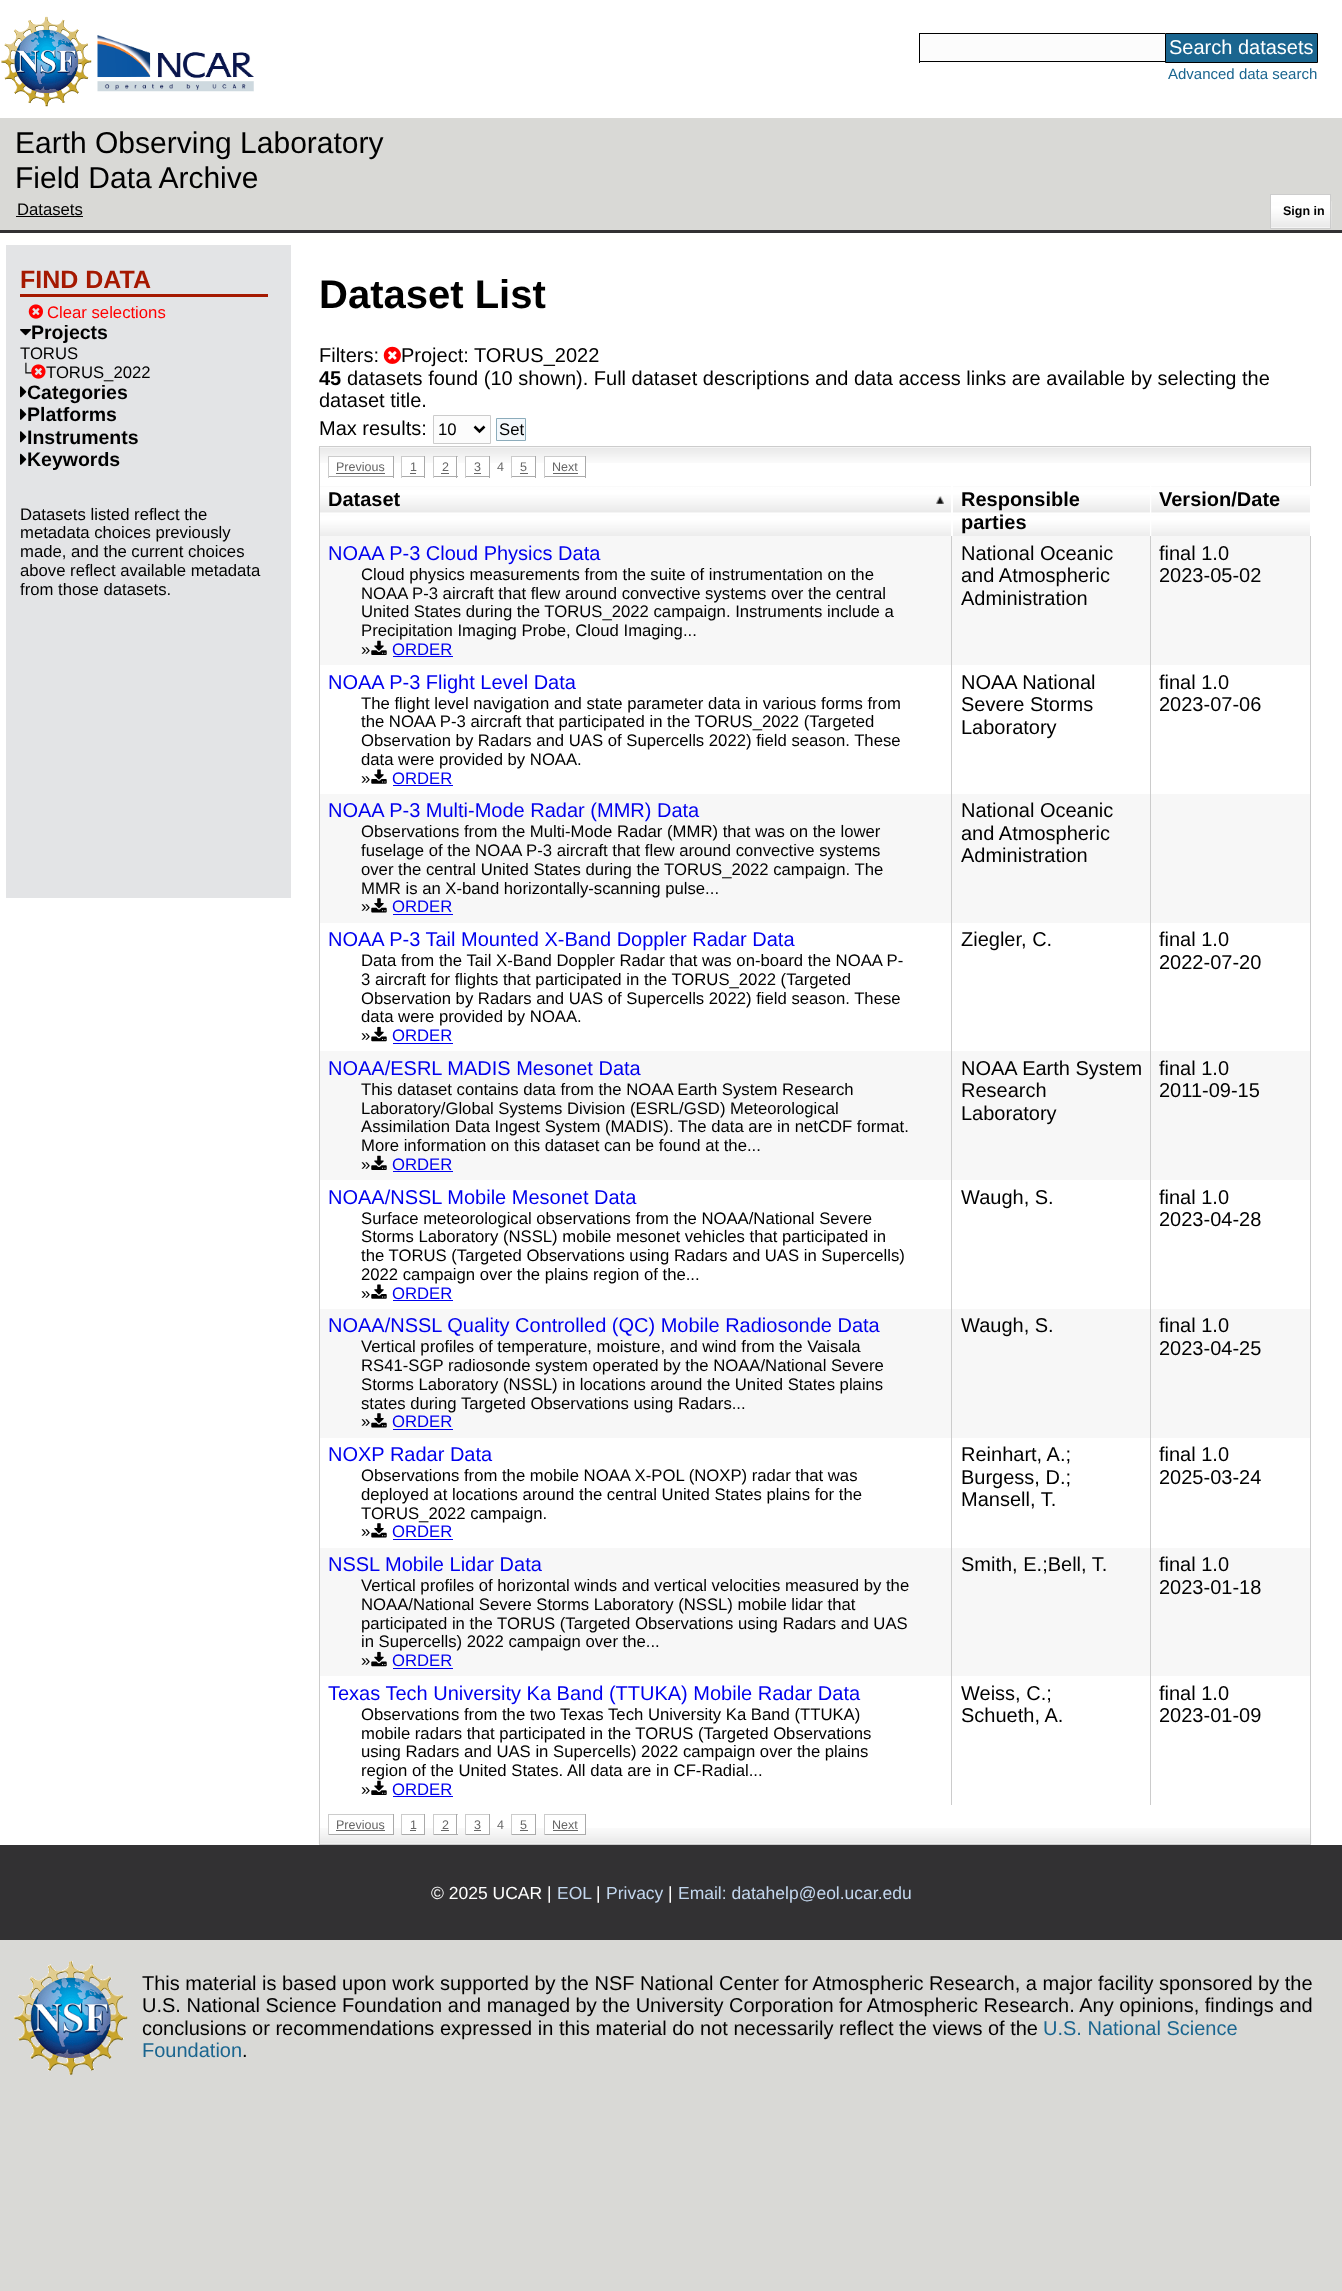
<!DOCTYPE html>
<meta charset="utf-8">
<style>body { margin: 0 } canvas { display: block }</style>
<canvas id="canvas" width="1342" height="2291"></canvas>
<img id="img1" src="images/1.png" hidden>
<img id="img2" src="images/2.png" hidden>
<img id="img3" src="images/3.png" hidden>
<img id="img4" src="images/4.png" hidden>
<img id="img5" src="images/5.png" hidden>
<img id="img6" src="images/7.png" hidden>
<img id="img7" src="images/8.png" hidden>
<img id="img8" src="images/9.png" hidden>
<img id="img9" src="images/10.png" hidden>
<img id="img10" src="images/11.png" hidden>
<img id="img11" src="images/12.png" hidden>
<img id="img12" src="images/13.png" hidden>
<img id="img13" src="images/14.png" hidden>
<img id="img14" src="images/15.png" hidden>
<img id="img15" src="images/16.png" hidden>
<img id="img16" src="images/17.png" hidden>
<img id="img17" src="images/18.png" hidden>
<img id="img18" src="images/19.png" hidden>
<img id="img19" src="images/20.png" hidden>
<img id="img20" src="images/21.png" hidden>
<img id="img21" src="images/22.png" hidden>
<img id="img22" src="images/23.png" hidden>
<img id="img23" src="images/6.png" hidden>
<script>
window.onload = function () {
    const canvas = document.getElementById('canvas');
    const context = canvas.getContext('2d');
    context.miterLimit = 4;
    context.fontKerning = 'normal';

    context.fillStyle = 'rgb(217, 217, 214)';
    context.fillRect(0, 0, 1342, 2291);
    context.fillStyle = 'rgb(255, 255, 255)';
    context.fillRect(0, 0, 1342, 118);
    context.drawImage(document.getElementById('img1'), 1, 16, 91, 91);
    context.drawImage(document.getElementById('img2'), 97, 35, 157, 57);
    context.fillStyle = 'rgb(252, 252, 252)';
    context.fillRect(920, 34, 245, 29);
    context.fillStyle = 'rgb(0, 0, 0)';
    context.fillRect(919, 33, 246, 1);
    context.fillRect(919, 61, 246, 1);
    context.fillRect(919, 33, 1, 30);
    context.fillStyle = 'rgb(26, 101, 143)';
    context.beginPath();
    context.rect(1165.5, 33.5, 152, 29);
    context.fill();
    context.strokeStyle = 'rgb(0, 0, 0)';
    context.stroke();
    context.fillStyle = 'rgb(50, 49, 51)';
    context.fillRect(0, 230, 1342, 3);
    context.fillStyle = 'rgb(0, 0, 0)';
    context.fillRect(16, 216, 67, 1);
    context.fillStyle = 'rgb(255, 255, 255)';
    context.fillRect(1271, 195, 59, 33);
    context.drawImage(document.getElementById('img3'), 1271, 201, 61, 27);
    context.strokeStyle = 'rgb(204, 204, 204)';
    context.strokeRect(1270.5, 194.5, 60, 34);
    context.fillRect(0, 233, 1342, 1612);
    context.fillStyle = 'rgb(227, 228, 230)';
    context.fillRect(6, 245, 285, 653);
    context.fillStyle = 'rgb(165, 25, 1)';
    context.fillRect(20, 294, 248, 3);
    context.drawImage(document.getElementById('img4'), 28, 304, 15, 15);
    context.drawImage(document.getElementById('img5'), 20, 329, 12, 7);
    context.drawImage(document.getElementById('img6'), 20, 386, 7, 12);
    context.drawImage(document.getElementById('img7'), 20, 408, 7, 12);
    context.drawImage(document.getElementById('img6'), 20, 431, 7, 12);
    context.drawImage(document.getElementById('img7'), 20, 453, 7, 12);
    context.drawImage(document.getElementById('img8'), 383, 346, 18, 18);
    context.fillStyle = 'rgb(252, 252, 252)';
    context.beginPath();
    context.rect(433.5, 415.5, 57, 28);
    context.fill();
    context.stroke();
    context.beginPath();
    context.moveTo(474.5, 426.5);
    context.lineTo(479.5, 431.5);
    context.lineTo(484.5, 426.5);
    context.strokeStyle = 'rgb(0, 0, 0)';
    context.lineWidth = 2.5;
    context.stroke();
    context.fillStyle = 'rgb(243, 248, 252)';
    context.beginPath();
    context.rect(496.5, 418.5, 29, 22);
    context.fill();
    context.strokeStyle = 'rgb(140, 172, 187)';
    context.lineWidth = 1;
    context.stroke();
    context.drawImage(document.getElementById('img9'), 318, 447, 994, 16);
    context.fillStyle = 'rgb(204, 204, 204)';
    context.fillRect(319, 446, 992, 1);
    context.fillRect(1310, 446, 1, 40);
    context.fillRect(319, 485, 1, 1320);
    context.fillRect(319, 446, 1, 40);
    context.fillStyle = 'rgb(255, 255, 255)';
    context.fillRect(329, 457, 64, 6);
    context.fillStyle = 'rgb(204, 204, 204)';
    context.fillRect(328, 456, 66, 1);
    context.fillStyle = 'rgb(170, 170, 170)';
    context.fillRect(393, 456, 1, 22);
    context.fillRect(328, 476, 66, 1);
    context.fillStyle = 'rgb(204, 204, 204)';
    context.fillRect(328, 456, 1, 22);
    context.fillStyle = 'rgb(102, 102, 102)';
    context.fillRect(336, 473, 49, 1);
    context.fillStyle = 'rgb(255, 255, 255)';
    context.fillRect(402, 457, 22, 6);
    context.fillStyle = 'rgb(204, 204, 204)';
    context.fillRect(401, 456, 24, 1);
    context.fillStyle = 'rgb(170, 170, 170)';
    context.fillRect(424, 456, 1, 22);
    context.fillRect(401, 476, 24, 1);
    context.fillStyle = 'rgb(204, 204, 204)';
    context.fillRect(401, 456, 1, 22);
    context.fillStyle = 'rgb(102, 102, 102)';
    context.fillRect(410, 473, 6, 1);
    context.fillStyle = 'rgb(255, 255, 255)';
    context.fillRect(434, 457, 24, 6);
    context.fillStyle = 'rgb(204, 204, 204)';
    context.fillRect(433, 456, 25, 1);
    context.fillStyle = 'rgb(170, 170, 170)';
    context.fillRect(456, 456, 1, 22);
    context.fillRect(433, 476, 25, 1);
    context.fillStyle = 'rgb(204, 204, 204)';
    context.fillRect(433, 456, 1, 22);
    context.fillStyle = 'rgb(102, 102, 102)';
    context.fillRect(441, 473, 8, 1);
    context.fillStyle = 'rgb(255, 255, 255)';
    context.fillRect(466, 457, 23, 6);
    context.fillStyle = 'rgb(204, 204, 204)';
    context.fillRect(465, 456, 25, 1);
    context.fillStyle = 'rgb(170, 170, 170)';
    context.fillRect(489, 456, 1, 22);
    context.fillRect(465, 476, 25, 1);
    context.fillStyle = 'rgb(204, 204, 204)';
    context.fillRect(465, 456, 1, 22);
    context.fillStyle = 'rgb(102, 102, 102)';
    context.fillRect(474, 473, 7, 1);
    context.fillStyle = 'rgb(255, 255, 255)';
    context.fillRect(512, 457, 23, 6);
    context.fillStyle = 'rgb(204, 204, 204)';
    context.fillRect(511, 456, 25, 1);
    context.fillStyle = 'rgb(170, 170, 170)';
    context.fillRect(535, 456, 1, 22);
    context.fillRect(511, 476, 25, 1);
    context.fillStyle = 'rgb(204, 204, 204)';
    context.fillRect(511, 456, 1, 22);
    context.fillStyle = 'rgb(102, 102, 102)';
    context.fillRect(520, 473, 8, 1);
    context.fillStyle = 'rgb(255, 255, 255)';
    context.fillRect(545, 457, 40, 6);
    context.fillStyle = 'rgb(204, 204, 204)';
    context.fillRect(544, 456, 42, 1);
    context.fillStyle = 'rgb(170, 170, 170)';
    context.fillRect(585, 456, 1, 22);
    context.fillRect(544, 476, 42, 1);
    context.fillStyle = 'rgb(204, 204, 204)';
    context.fillRect(544, 456, 1, 22);
    context.fillStyle = 'rgb(102, 102, 102)';
    context.fillRect(553, 473, 25, 1);
    context.fillStyle = 'rgb(247, 247, 247)';
    context.fillRect(320, 536, 990, 129);
    context.fillRect(320, 794, 990, 129);
    context.fillRect(320, 1051, 990, 129);
    context.fillRect(320, 1309, 990, 129);
    context.fillRect(320, 1548, 990, 128);
    context.fillStyle = 'rgb(204, 204, 204)';
    context.fillRect(951, 535, 1, 1270);
    context.fillStyle = 'rgb(255, 255, 255)';
    context.fillRect(951, 535, 1, 1);
    context.drawImage(document.getElementById('img10'), 320, 486, 631, 50);
    context.drawImage(document.getElementById('img11'), 936, 496, 8, 8);
    context.fillStyle = 'rgb(204, 204, 204)';
    context.fillRect(1150, 535, 1, 1270);
    context.fillStyle = 'rgb(255, 255, 255)';
    context.fillRect(1150, 535, 1, 1);
    context.drawImage(document.getElementById('img12'), 953, 486, 197, 50);
    context.fillStyle = 'rgb(204, 204, 204)';
    context.fillRect(1310, 535, 1, 1270);
    context.fillStyle = 'rgb(255, 255, 255)';
    context.fillRect(1310, 535, 1, 1);
    context.drawImage(document.getElementById('img13'), 1151, 486, 159, 50);
    context.drawImage(document.getElementById('img14'), 371, 640, 16, 15);
    context.fillStyle = 'rgb(0, 0, 238)';
    context.fillRect(393, 656, 60, 1);
    context.drawImage(document.getElementById('img15'), 371, 769, 16, 15);
    context.fillRect(393, 785, 60, 1);
    context.drawImage(document.getElementById('img16'), 371, 898, 16, 15);
    context.fillRect(393, 914, 60, 1);
    context.drawImage(document.getElementById('img17'), 371, 1026, 16, 16);
    context.fillRect(393, 1043, 60, 1);
    context.drawImage(document.getElementById('img14'), 371, 1155, 16, 15);
    context.fillRect(393, 1171, 60, 1);
    context.drawImage(document.getElementById('img15'), 371, 1284, 16, 15);
    context.fillRect(393, 1300, 60, 1);
    context.drawImage(document.getElementById('img16'), 371, 1413, 16, 15);
    context.fillRect(393, 1429, 60, 1);
    context.drawImage(document.getElementById('img18'), 371, 1523, 16, 15);
    context.fillRect(393, 1539, 60, 1);
    context.drawImage(document.getElementById('img19'), 371, 1651, 16, 16);
    context.fillRect(393, 1668, 60, 1);
    context.drawImage(document.getElementById('img20'), 371, 1780, 16, 15);
    context.fillRect(393, 1796, 60, 1);
    context.drawImage(document.getElementById('img21'), 318, 1828, 994, 16);
    context.fillStyle = 'rgb(204, 204, 204)';
    context.fillRect(1310, 1805, 1, 40);
    context.fillRect(319, 1844, 992, 1);
    context.fillRect(319, 1805, 1, 40);
    context.fillStyle = 'rgb(255, 255, 255)';
    context.fillRect(329, 1828, 64, 6);
    context.fillStyle = 'rgb(204, 204, 204)';
    context.fillRect(328, 1814, 66, 1);
    context.fillStyle = 'rgb(170, 170, 170)';
    context.fillRect(393, 1814, 1, 21);
    context.fillRect(328, 1834, 66, 1);
    context.fillStyle = 'rgb(204, 204, 204)';
    context.fillRect(328, 1814, 1, 21);
    context.fillStyle = 'rgb(102, 102, 102)';
    context.fillRect(336, 1830, 49, 1);
    context.fillStyle = 'rgb(255, 255, 255)';
    context.fillRect(402, 1828, 22, 6);
    context.fillStyle = 'rgb(204, 204, 204)';
    context.fillRect(401, 1814, 24, 1);
    context.fillStyle = 'rgb(170, 170, 170)';
    context.fillRect(424, 1814, 1, 21);
    context.fillRect(401, 1834, 24, 1);
    context.fillStyle = 'rgb(204, 204, 204)';
    context.fillRect(401, 1814, 1, 21);
    context.fillStyle = 'rgb(102, 102, 102)';
    context.fillRect(410, 1830, 6, 1);
    context.fillStyle = 'rgb(255, 255, 255)';
    context.fillRect(434, 1828, 24, 6);
    context.fillStyle = 'rgb(204, 204, 204)';
    context.fillRect(433, 1814, 25, 1);
    context.fillStyle = 'rgb(170, 170, 170)';
    context.fillRect(456, 1814, 1, 21);
    context.fillRect(433, 1834, 25, 1);
    context.fillStyle = 'rgb(204, 204, 204)';
    context.fillRect(433, 1814, 1, 21);
    context.fillStyle = 'rgb(102, 102, 102)';
    context.fillRect(441, 1830, 8, 1);
    context.fillStyle = 'rgb(255, 255, 255)';
    context.fillRect(466, 1828, 23, 6);
    context.fillStyle = 'rgb(204, 204, 204)';
    context.fillRect(465, 1814, 25, 1);
    context.fillStyle = 'rgb(170, 170, 170)';
    context.fillRect(489, 1814, 1, 21);
    context.fillRect(465, 1834, 25, 1);
    context.fillStyle = 'rgb(204, 204, 204)';
    context.fillRect(465, 1814, 1, 21);
    context.fillStyle = 'rgb(102, 102, 102)';
    context.fillRect(474, 1830, 7, 1);
    context.fillStyle = 'rgb(255, 255, 255)';
    context.fillRect(512, 1828, 23, 6);
    context.fillStyle = 'rgb(204, 204, 204)';
    context.fillRect(511, 1814, 25, 1);
    context.fillStyle = 'rgb(170, 170, 170)';
    context.fillRect(535, 1814, 1, 21);
    context.fillRect(511, 1834, 25, 1);
    context.fillStyle = 'rgb(204, 204, 204)';
    context.fillRect(511, 1814, 1, 21);
    context.fillStyle = 'rgb(102, 102, 102)';
    context.fillRect(520, 1830, 8, 1);
    context.fillStyle = 'rgb(255, 255, 255)';
    context.fillRect(545, 1828, 40, 6);
    context.fillStyle = 'rgb(204, 204, 204)';
    context.fillRect(544, 1814, 42, 1);
    context.fillStyle = 'rgb(170, 170, 170)';
    context.fillRect(585, 1814, 1, 21);
    context.fillRect(544, 1834, 42, 1);
    context.fillStyle = 'rgb(204, 204, 204)';
    context.fillRect(544, 1814, 1, 21);
    context.fillStyle = 'rgb(102, 102, 102)';
    context.fillRect(553, 1830, 25, 1);
    context.fillStyle = 'rgb(50, 49, 51)';
    context.fillRect(0, 1845, 1342, 95);
    context.drawImage(document.getElementById('img22'), 14, 1961, 114, 114);
    context.font = '20px Liberation Sans';
    context.fillStyle = 'rgb(255, 255, 255)';
    context.fillText('Search datasets', 1169, 54);
    context.font = '15px Liberation Sans';
    context.fillStyle = 'rgb(26, 101, 143)';
    context.fillText('Advanced data search', 1168, 79);
    context.font = '30px Liberation Sans';
    context.fillStyle = 'rgb(0, 0, 0)';
    context.fillText('Earth Observing Laboratory', 15, 153);
    context.fillText('Field Data Archive', 15, 188);
    context.font = '16.7px Liberation Sans';
    context.fillText('Datasets', 17, 215);
    context.font = 'bold 12.5px Liberation Sans';
    context.fillText('Sign in', 1283, 215);
    context.font = 'bold 25px Liberation Sans';
    context.fillStyle = 'rgb(165, 25, 1)';
    context.fillText('FIND DATA', 20, 288);
    context.font = '16.7px Liberation Sans';
    context.fillStyle = 'rgb(255, 0, 0)';
    context.fillText('Clear selections', 47, 318);
    context.font = 'bold 19.5px Liberation Sans';
    context.fillStyle = 'rgb(0, 0, 0)';
    context.fillText('Projects', 31, 339);
    context.font = '16.7px Liberation Sans';
    context.fillText('TORUS', 20, 359);
    context.fillText('└', 20, 378);
    context.drawImage(document.getElementById('img23'), 31, 364, 15, 15);
    context.fillText('TORUS_2022', 46, 378);
    context.font = 'bold 19.5px Liberation Sans';
    context.fillText('Categories', 27, 399);
    context.fillText('Platforms', 27, 421);
    context.fillText('Instruments', 27, 444);
    context.fillText('Keywords', 27, 466);
    context.font = '16.7px Liberation Sans';
    context.fillText('Datasets listed reflect the', 20, 520);
    context.fillText('metadata choices previously', 20, 538);
    context.fillText('made, and the current choices', 20, 557);
    context.fillText('above reflect available metadata', 20, 576);
    context.fillText('from those datasets.', 20, 595);
    context.font = 'bold 40px Liberation Sans';
    context.fillText('Dataset List', 319, 308);
    context.font = '20px Liberation Sans';
    context.fillText('Filters:', 319, 362);
    context.fillText('Project:', 401, 362);
    context.fillText('TORUS_2022', 474, 362);
    context.font = 'bold 20px Liberation Sans';
    context.fillText('45', 319, 385);
    context.font = '20px Liberation Sans';
    context.fillText('datasets found (10 shown). Full dataset descriptions and data access links are available by selecting the', 347, 385);
    context.fillText('dataset title.', 319, 407);
    context.fillText('Max results:', 319, 435);
    context.font = '16.7px Liberation Sans';
    context.fillText('10', 438, 435);
    context.fillText('Set', 499, 435);
    context.font = '12.5px Liberation Sans';
    context.fillStyle = 'rgb(102, 102, 102)';
    context.fillText('Previous', 336, 471);
    context.fillText('1', 410, 471);
    context.fillText('2', 442, 471);
    context.fillText('3', 474, 471);
    context.fillText('4', 497, 471);
    context.fillText('5', 520, 471);
    context.fillText('Next', 552, 471);
    context.font = 'bold 20px Liberation Sans';
    context.fillStyle = 'rgb(0, 0, 0)';
    context.fillText('Dataset', 328, 506);
    context.fillText('Responsible', 961, 506);
    context.fillText('parties', 961, 529);
    context.fillText('Version/Date', 1159, 506);
    context.font = '20px Liberation Sans';
    context.fillStyle = 'rgb(0, 0, 238)';
    context.fillText('NOAA P-3 Cloud Physics Data', 328, 560);
    context.font = '16.7px Liberation Sans';
    context.fillStyle = 'rgb(0, 0, 0)';
    context.fillText('Cloud physics measurements from the suite of instrumentation on the', 361, 580);
    context.fillText('NOAA P-3 aircraft that flew around convective systems over the central', 361, 599);
    context.fillText('United States during the TORUS_2022 campaign. Instruments include a', 361, 617);
    context.fillText('Precipitation Imaging Probe, Cloud Imaging...', 361, 636);
    context.fillText('»', 361, 655);
    context.fillStyle = 'rgb(0, 0, 238)';
    context.fillText('ORDER', 392, 655);
    context.font = '20px Liberation Sans';
    context.fillStyle = 'rgb(0, 0, 0)';
    context.fillText('National Oceanic', 961, 560);
    context.fillText('and Atmospheric', 961, 582);
    context.fillText('Administration', 961, 605);
    context.fillText('final 1.0', 1159, 560);
    context.fillText('2023-05-02', 1159, 582);
    context.fillStyle = 'rgb(0, 0, 238)';
    context.fillText('NOAA P-3 Flight Level Data', 328, 689);
    context.font = '16.7px Liberation Sans';
    context.fillStyle = 'rgb(0, 0, 0)';
    context.fillText('The flight level navigation and state parameter data in various forms from', 361, 709);
    context.fillText('the NOAA P-3 aircraft that participated in the TORUS_2022 (Targeted', 361, 727);
    context.fillText('Observation by Radars and UAS of Supercells 2022) field season. These', 361, 746);
    context.fillText('data were provided by NOAA.', 361, 765);
    context.fillText('»', 361, 784);
    context.fillStyle = 'rgb(0, 0, 238)';
    context.fillText('ORDER', 392, 784);
    context.font = '20px Liberation Sans';
    context.fillStyle = 'rgb(0, 0, 0)';
    context.fillText('NOAA National', 961, 689);
    context.fillText('Severe Storms', 961, 711);
    context.fillText('Laboratory', 961, 734);
    context.fillText('final 1.0', 1159, 689);
    context.fillText('2023-07-06', 1159, 711);
    context.fillStyle = 'rgb(0, 0, 238)';
    context.fillText('NOAA P-3 Multi-Mode Radar (MMR) Data', 328, 817);
    context.font = '16.7px Liberation Sans';
    context.fillStyle = 'rgb(0, 0, 0)';
    context.fillText('Observations from the Multi-Mode Radar (MMR) that was on the lower', 361, 837);
    context.fillText('fuselage of the NOAA P-3 aircraft that flew around convective systems', 361, 856);
    context.fillText('over the central United States during the TORUS_2022 campaign. The', 361, 875);
    context.fillText('MMR is an X-band horizontally-scanning pulse...', 361, 894);
    context.fillText('»', 361, 912);
    context.fillStyle = 'rgb(0, 0, 238)';
    context.fillText('ORDER', 392, 912);
    context.font = '20px Liberation Sans';
    context.fillStyle = 'rgb(0, 0, 0)';
    context.fillText('National Oceanic', 961, 817);
    context.fillText('and Atmospheric', 961, 840);
    context.fillText('Administration', 961, 862);
    context.fillStyle = 'rgb(0, 0, 238)';
    context.fillText('NOAA P-3 Tail Mounted X-Band Doppler Radar Data', 328, 946);
    context.font = '16.7px Liberation Sans';
    context.fillStyle = 'rgb(0, 0, 0)';
    context.fillText('Data from the Tail X-Band Doppler Radar that was on-board the NOAA P-', 361, 966);
    context.fillText('3 aircraft for flights that participated in the TORUS_2022 (Targeted', 361, 985);
    context.fillText('Observation by Radars and UAS of Supercells 2022) field season. These', 361, 1004);
    context.fillText('data were provided by NOAA.', 361, 1022);
    context.fillText('»', 361, 1041);
    context.fillStyle = 'rgb(0, 0, 238)';
    context.fillText('ORDER', 392, 1041);
    context.font = '20px Liberation Sans';
    context.fillStyle = 'rgb(0, 0, 0)';
    context.fillText('Ziegler, C.', 961, 946);
    context.fillText('final 1.0', 1159, 946);
    context.fillText('2022-07-20', 1159, 969);
    context.fillStyle = 'rgb(0, 0, 238)';
    context.fillText('NOAA/ESRL MADIS Mesonet Data', 328, 1075);
    context.font = '16.7px Liberation Sans';
    context.fillStyle = 'rgb(0, 0, 0)';
    context.fillText('This dataset contains data from the NOAA Earth System Research', 361, 1095);
    context.fillText('Laboratory/Global Systems Division (ESRL/GSD) Meteorological', 361, 1114);
    context.fillText('Assimilation Data Ingest System (MADIS). The data are in netCDF format.', 361, 1132);
    context.fillText('More information on this dataset can be found at the...', 361, 1151);
    context.fillText('»', 361, 1170);
    context.fillStyle = 'rgb(0, 0, 238)';
    context.fillText('ORDER', 392, 1170);
    context.font = '20px Liberation Sans';
    context.fillStyle = 'rgb(0, 0, 0)';
    context.fillText('NOAA Earth System', 961, 1075);
    context.fillText('Research', 961, 1097);
    context.fillText('Laboratory', 961, 1120);
    context.fillText('final 1.0', 1159, 1075);
    context.fillText('2011-09-15', 1159, 1097);
    context.fillStyle = 'rgb(0, 0, 238)';
    context.fillText('NOAA/NSSL Mobile Mesonet Data', 328, 1204);
    context.font = '16.7px Liberation Sans';
    context.fillStyle = 'rgb(0, 0, 0)';
    context.fillText('Surface meteorological observations from the NOAA/National Severe', 361, 1224);
    context.fillText('Storms Laboratory (NSSL) mobile mesonet vehicles that participated in', 361, 1242);
    context.fillText('the TORUS (Targeted Observations using Radars and UAS in Supercells)', 361, 1261);
    context.fillText('2022 campaign over the plains region of the...', 361, 1280);
    context.fillText('»', 361, 1299);
    context.fillStyle = 'rgb(0, 0, 238)';
    context.fillText('ORDER', 392, 1299);
    context.font = '20px Liberation Sans';
    context.fillStyle = 'rgb(0, 0, 0)';
    context.fillText('Waugh, S.', 961, 1204);
    context.fillText('final 1.0', 1159, 1204);
    context.fillText('2023-04-28', 1159, 1226);
    context.fillStyle = 'rgb(0, 0, 238)';
    context.fillText('NOAA/NSSL Quality Controlled (QC) Mobile Radiosonde Data', 328, 1332);
    context.font = '16.7px Liberation Sans';
    context.fillStyle = 'rgb(0, 0, 0)';
    context.fillText('Vertical profiles of temperature, moisture, and wind from the Vaisala', 361, 1352);
    context.fillText('RS41-SGP radiosonde system operated by the NOAA/National Severe', 361, 1371);
    context.fillText('Storms Laboratory (NSSL) in locations around the United States plains', 361, 1390);
    context.fillText('states during Targeted Observations using Radars...', 361, 1409);
    context.fillText('»', 361, 1427);
    context.fillStyle = 'rgb(0, 0, 238)';
    context.fillText('ORDER', 392, 1427);
    context.font = '20px Liberation Sans';
    context.fillStyle = 'rgb(0, 0, 0)';
    context.fillText('Waugh, S.', 961, 1332);
    context.fillText('final 1.0', 1159, 1332);
    context.fillText('2023-04-25', 1159, 1355);
    context.fillStyle = 'rgb(0, 0, 238)';
    context.fillText('NOXP Radar Data', 328, 1461);
    context.font = '16.7px Liberation Sans';
    context.fillStyle = 'rgb(0, 0, 0)';
    context.fillText('Observations from the mobile NOAA X-POL (NOXP) radar that was', 361, 1481);
    context.fillText('deployed at locations around the central United States plains for the', 361, 1500);
    context.fillText('TORUS_2022 campaign.', 361, 1519);
    context.fillText('»', 361, 1537);
    context.fillStyle = 'rgb(0, 0, 238)';
    context.fillText('ORDER', 392, 1537);
    context.font = '20px Liberation Sans';
    context.fillStyle = 'rgb(0, 0, 0)';
    context.fillText('Reinhart, A.;', 961, 1461);
    context.fillText('Burgess, D.;', 961, 1484);
    context.fillText('Mansell, T.', 961, 1506);
    context.fillText('final 1.0', 1159, 1461);
    context.fillText('2025-03-24', 1159, 1484);
    context.fillStyle = 'rgb(0, 0, 238)';
    context.fillText('NSSL Mobile Lidar Data', 328, 1571);
    context.font = '16.7px Liberation Sans';
    context.fillStyle = 'rgb(0, 0, 0)';
    context.fillText('Vertical profiles of horizontal winds and vertical velocities measured by the', 361, 1591);
    context.fillText('NOAA/National Severe Storms Laboratory (NSSL) mobile lidar that', 361, 1610);
    context.fillText('participated in the TORUS (Targeted Observations using Radars and UAS', 361, 1629);
    context.fillText('in Supercells) 2022 campaign over the...', 361, 1647);
    context.fillText('»', 361, 1666);
    context.fillStyle = 'rgb(0, 0, 238)';
    context.fillText('ORDER', 392, 1666);
    context.font = '20px Liberation Sans';
    context.fillStyle = 'rgb(0, 0, 0)';
    context.fillText('Smith, E.;Bell, T.', 961, 1571);
    context.fillText('final 1.0', 1159, 1571);
    context.fillText('2023-01-18', 1159, 1594);
    context.fillStyle = 'rgb(0, 0, 238)';
    context.fillText('Texas Tech University Ka Band (TTUKA) Mobile Radar Data', 328, 1700);
    context.font = '16.7px Liberation Sans';
    context.fillStyle = 'rgb(0, 0, 0)';
    context.fillText('Observations from the two Texas Tech University Ka Band (TTUKA)', 361, 1720);
    context.fillText('mobile radars that participated in the TORUS (Targeted Observations', 361, 1739);
    context.fillText('using Radars and UAS in Supercells) 2022 campaign over the plains', 361, 1757);
    context.fillText('region of the United States. All data are in CF-Radial...', 361, 1776);
    context.fillText('»', 361, 1795);
    context.fillStyle = 'rgb(0, 0, 238)';
    context.fillText('ORDER', 392, 1795);
    context.font = '20px Liberation Sans';
    context.fillStyle = 'rgb(0, 0, 0)';
    context.fillText('Weiss, C.;', 961, 1700);
    context.fillText('Schueth, A.', 961, 1722);
    context.fillText('final 1.0', 1159, 1700);
    context.fillText('2023-01-09', 1159, 1722);
    context.font = '12.5px Liberation Sans';
    context.fillStyle = 'rgb(102, 102, 102)';
    context.fillText('Previous', 336, 1829);
    context.fillText('1', 410, 1829);
    context.fillText('2', 442, 1829);
    context.fillText('3', 474, 1829);
    context.fillText('4', 497, 1829);
    context.fillText('5', 520, 1829);
    context.fillText('Next', 552, 1829);
    context.font = '17.5px Liberation Sans';
    context.fillStyle = 'rgb(255, 255, 255)';
    context.fillText('© 2025 UCAR |', 431, 1899);
    context.fillStyle = 'rgb(195, 215, 238)';
    context.fillText('EOL', 557, 1899);
    context.fillStyle = 'rgb(255, 255, 255)';
    context.fillText('|', 596, 1899);
    context.fillStyle = 'rgb(195, 215, 238)';
    context.fillText('Privacy', 606, 1899);
    context.fillStyle = 'rgb(255, 255, 255)';
    context.fillText('|', 668, 1899);
    context.fillStyle = 'rgb(195, 215, 238)';
    context.fillText('Email: datahelp@eol.ucar.edu', 678, 1899);
    context.font = '20px Liberation Sans';
    context.fillStyle = 'rgb(0, 0, 0)';
    context.fillText('This material is based upon work supported by the NSF National Center for Atmospheric Research, a major facility sponsored by the', 142, 1990);
    context.fillText('U.S. National Science Foundation and managed by the University Corporation for Atmospheric Research. Any opinions, findings and', 142, 2012);
    context.fillText('conclusions or recommendations expressed in this material do not necessarily reflect the views of the', 142, 2035);
    context.fillStyle = 'rgb(26, 101, 143)';
    context.fillText('U.S. National Science', 1043, 2035);
    context.fillText('Foundation', 142, 2057);
    context.fillStyle = 'rgb(0, 0, 0)';
    context.fillText('.', 242, 2057);
};
</script>
